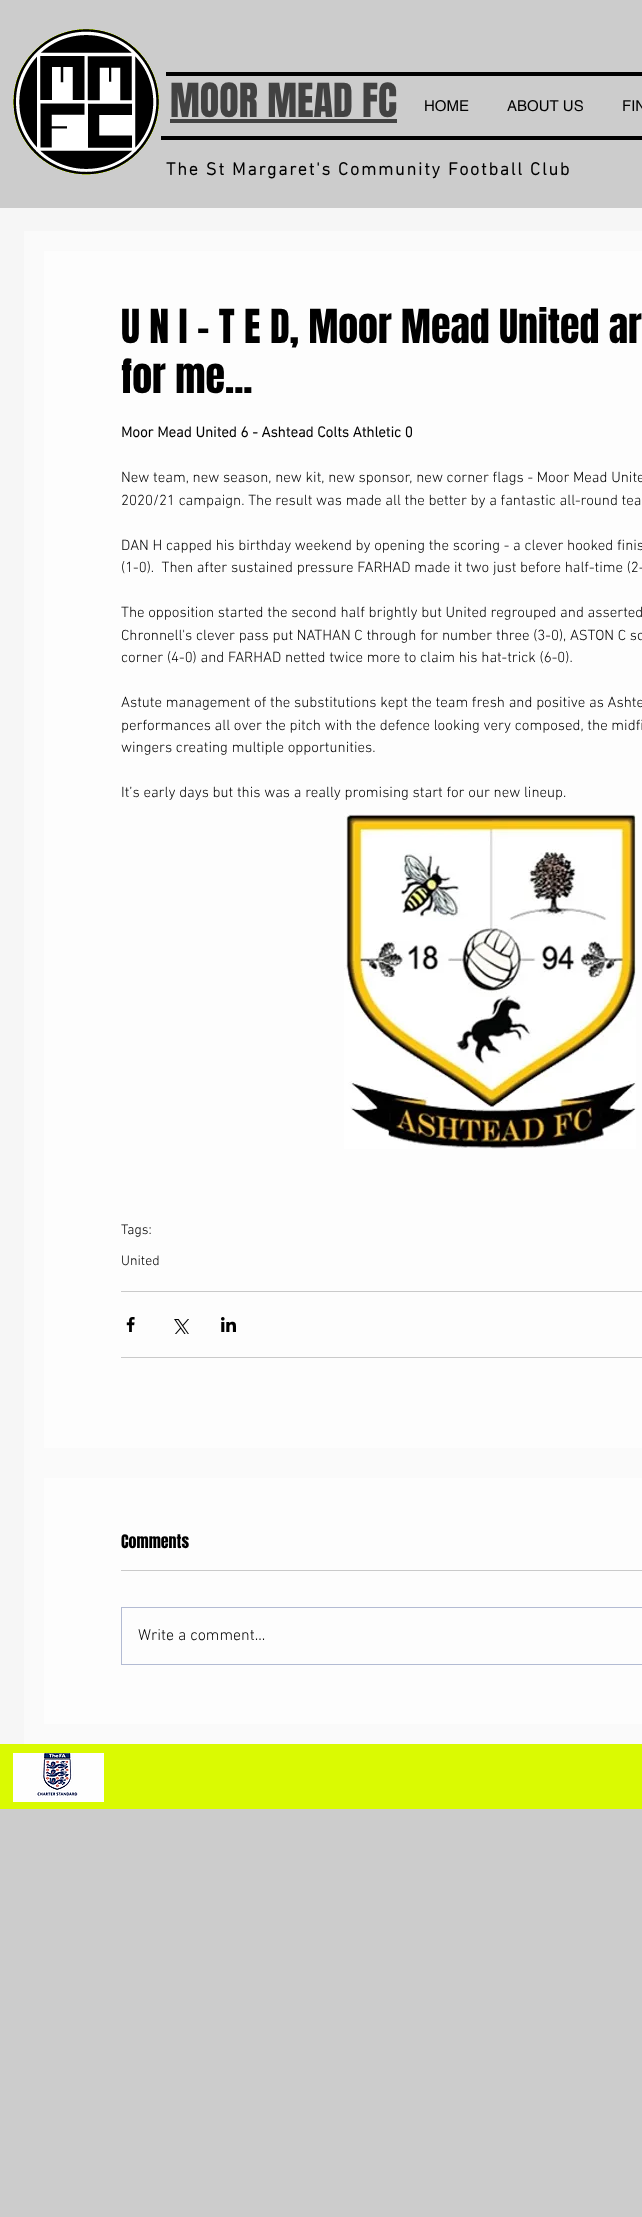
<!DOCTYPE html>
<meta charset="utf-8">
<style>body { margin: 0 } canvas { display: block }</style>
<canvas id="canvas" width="642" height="2217"></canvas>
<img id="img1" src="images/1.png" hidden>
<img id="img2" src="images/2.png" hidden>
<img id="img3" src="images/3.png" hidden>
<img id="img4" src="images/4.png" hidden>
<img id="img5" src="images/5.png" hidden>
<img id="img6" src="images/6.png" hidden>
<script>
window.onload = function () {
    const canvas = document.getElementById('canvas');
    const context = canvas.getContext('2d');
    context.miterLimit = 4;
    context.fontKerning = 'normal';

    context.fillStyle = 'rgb(204, 204, 204)';
    context.fillRect(0, 0, 642, 2217);
    context.drawImage(document.getElementById('img1'), 13, 29, 146, 146);
    context.fillStyle = 'rgb(0, 0, 0)';
    context.fillRect(166, 72, 476, 4);
    context.fillStyle = 'rgb(66, 66, 66)';
    context.fillRect(170, 119, 227, 4);
    context.fillStyle = 'rgb(0, 0, 0)';
    context.fillRect(161, 136, 481, 4);
    context.fillStyle = 'rgb(246, 246, 246)';
    context.fillRect(0, 208, 642, 1536);
    context.fillStyle = 'rgb(250, 250, 250)';
    context.fillRect(24, 231, 618, 1513);
    context.fillStyle = 'rgb(253, 253, 253)';
    context.fillRect(44, 251, 598, 1197);
    context.drawImage(document.getElementById('img2'), 344, 813, 292, 336);
    context.fillStyle = 'rgb(202, 202, 202)';
    context.fillRect(121, 1291, 521, 1);
    context.drawImage(document.getElementById('img3'), 126, 1317, 9, 15);
    context.drawImage(document.getElementById('img4'), 174, 1319, 15, 15);
    context.drawImage(document.getElementById('img5'), 221, 1317, 15, 15);
    context.fillRect(121, 1357, 521, 1);
    context.fillStyle = 'rgb(253, 253, 253)';
    context.fillRect(44, 1478, 598, 246);
    context.fillStyle = 'rgb(202, 202, 202)';
    context.fillRect(121, 1570, 521, 1);
    context.strokeStyle = 'rgb(179, 187, 211)';
    context.strokeRect(121.5, 1607.5, 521, 57);
    context.fillStyle = 'rgb(218, 250, 2)';
    context.fillRect(0, 1744, 642, 65);
    context.drawImage(document.getElementById('img6'), 13, 1753, 91, 49);
    context.font = '40px Anton';
    context.fillStyle = 'rgb(66, 66, 66)';
    context.fillText('MOOR MEAD FC', 170, 117);
    context.font = '15px helvetica';
    context.fillStyle = 'rgb(0, 0, 0)';
    context.fillText('HOME', 424, 111);
    context.fillText('ABOUT US', 507, 111);
    context.fillText('FIN', 622, 111);
    context.letterSpacing = '1.8px';
    context.font = 'bold 18px "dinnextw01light"';
    context.fillText('The St Margaret\'s Community Football Club', 166, 175);
    context.letterSpacing = '0px';
    context.font = '40px Anton';
    context.fillText('U N I - T E D, Moor Mead United ar', 121, 343);
    context.fillText('for me...', 121, 393);
    context.font = 'bold 15px "dinnextw01light"';
    context.fillText('Moor Mead United 6 - Ashtead Colts Athletic 0', 121, 437);
    context.font = '300 15px "dinnextw01light"';
    context.fillText('New team, new season, new kit, new sponsor, new corner flags - Moor Mead Unite', 121, 482);
    context.fillText('2020/21 campaign. The result was made all the better by a fantastic all-round tea', 121, 505);
    context.fillText('DAN H capped his birthday weekend by opening the scoring - a clever hooked finis', 121, 550);
    context.fillText('(1-0).  Then after sustained pressure FARHAD made it two just before half-time (2-', 121, 572);
    context.fillText('The opposition started the second half brightly but United regrouped and asserted', 121, 617);
    context.fillText('Chronnell\'s clever pass put NATHAN C through for number three (3-0), ASTON C sc', 121, 640);
    context.fillText('corner (4-0) and FARHAD netted twice more to claim his hat-trick (6-0).', 121, 662);
    context.fillText('Astute management of the substitutions kept the team fresh and positive as Ashte', 121, 707);
    context.fillText('performances all over the pitch with the defence looking very composed, the midfi', 121, 730);
    context.fillText('wingers creating multiple opportunities.', 121, 752);
    context.fillText('It’s early days but this was a really promising start for our new lineup.', 121, 797);
    context.font = '300 14px "dinnextw01light"';
    context.fillText('Tags:', 121, 1234);
    context.fillText('United', 121, 1265);
    context.font = '16px Anton';
    context.fillText('Comments', 121, 1548);
    context.font = '300 16px "dinnextw01light"';
    context.fillText('Write a comment...', 138, 1640);
};
</script>
